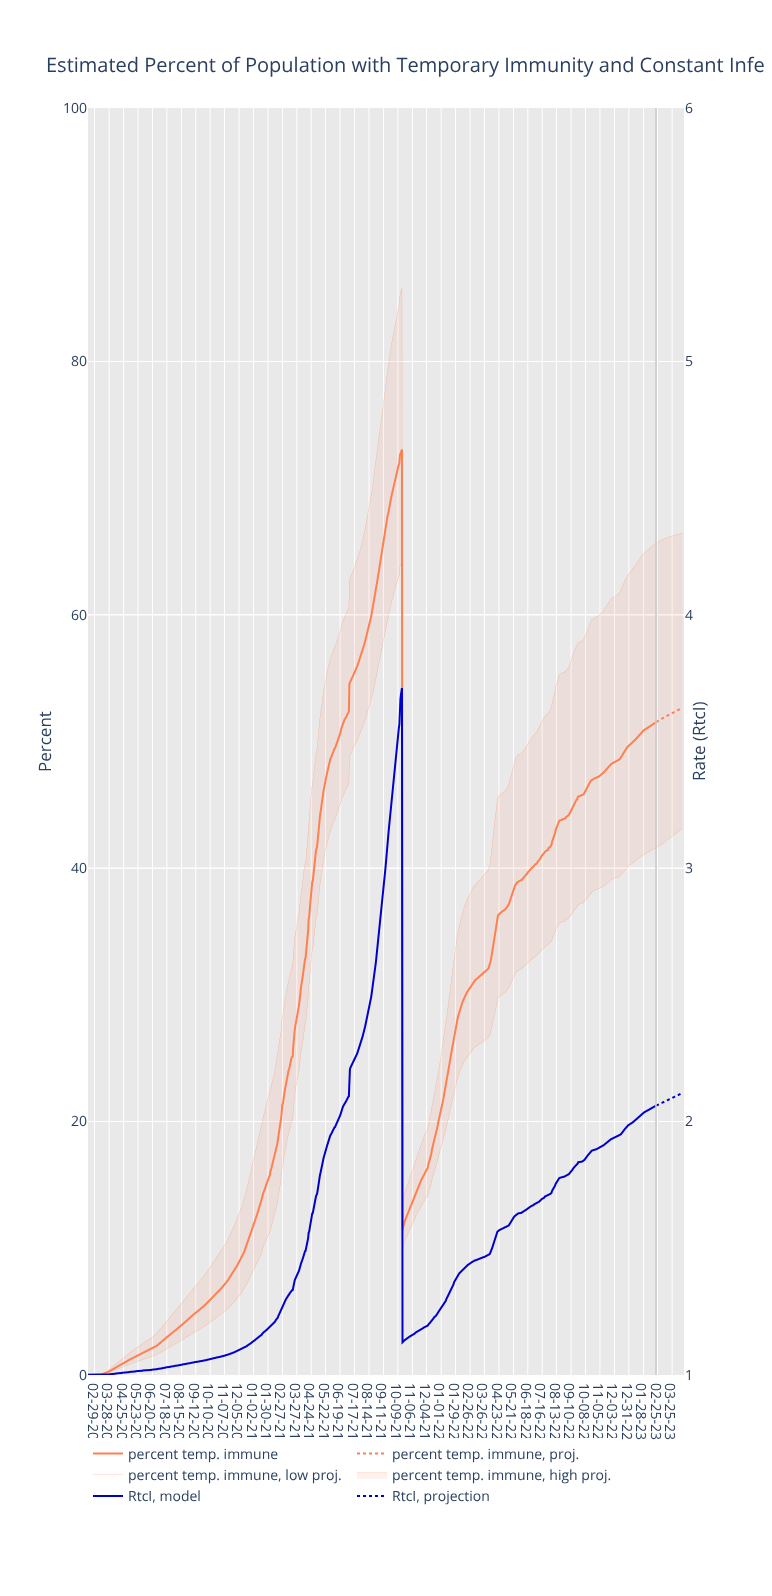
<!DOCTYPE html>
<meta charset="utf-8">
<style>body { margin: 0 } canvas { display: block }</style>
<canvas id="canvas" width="772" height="1596"></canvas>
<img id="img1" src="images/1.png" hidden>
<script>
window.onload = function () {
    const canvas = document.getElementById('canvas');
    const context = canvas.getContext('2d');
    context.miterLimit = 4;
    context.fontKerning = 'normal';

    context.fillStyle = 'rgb(255, 255, 255)';
    context.fillRect(0, 0, 772, 1596);
    context.drawImage(document.getElementById('img1'), 88, 108, 596, 1267);
    context.fillStyle = 'rgba(200, 200, 200, 0.75)';
    context.fillRect(655, 108, 2, 1267);
    context.beginPath();
    context.moveTo(93, 1453.5);
    context.lineTo(123, 1453.5);
    context.strokeStyle = 'rgb(255, 127, 80)';
    context.lineWidth = 2;
    context.stroke();
    context.beginPath();
    context.moveTo(357, 1453.5);
    context.lineTo(387, 1453.5);
    context.setLineDash([3, 3]);
    context.stroke();
    context.fillStyle = 'rgb(255, 229, 220)';
    context.fillRect(93, 1474, 30, 1);
    context.fillStyle = 'rgb(255, 242, 238)';
    context.fillRect(357, 1473, 30, 6);
    context.fillStyle = 'rgb(255, 229, 220)';
    context.fillRect(357, 1472, 30, 1);
    context.fillStyle = 'rgb(0, 0, 205)';
    context.fillRect(93, 1495, 30, 2);
    context.beginPath();
    context.moveTo(357, 1496);
    context.lineTo(387, 1496);
    context.strokeStyle = 'rgb(0, 0, 205)';
    context.stroke();
    context.font = '20px Open Sans';
    context.fillStyle = 'rgb(42, 63, 95)';
    context.fillText('Estimated Percent of Population with Temporary Immunity and Constant Infe', 46, 72);
    context.font = '17px Open Sans';
    context.save();
    context.translate(51, 772);
    context.rotate(-90 * Math.PI / 180);
    context.fillText('Percent', 0, 0);
    context.restore();
    context.save();
    context.translate(705, 781);
    context.rotate(-90 * Math.PI / 180);
    context.fillText('Rate (RtcI)', 0, 0);
    context.restore();
    context.font = '14px Open Sans';
    context.fillText('percent temp. immune', 128, 1459);
    context.fillText('percent temp. immune, proj.', 392, 1459);
    context.fillText('percent temp. immune, low proj.', 128, 1480);
    context.fillText('percent temp. immune, high proj.', 392, 1480);
    context.fillText('RtcI, model', 128, 1501);
    context.fillText('RtcI, projection', 392, 1501);
    context.fillText('100', 63, 113);
    context.fillText('6', 685, 113);
    context.fillText('80', 71, 366);
    context.fillText('5', 685, 366);
    context.fillText('60', 71, 620);
    context.fillText('4', 685, 620);
    context.fillText('40', 71, 873);
    context.fillText('3', 685, 873);
    context.fillText('20', 71, 1126);
    context.fillText('2', 685, 1126);
    context.fillText('0', 79, 1380);
    context.fillText('1', 685, 1380);
    context.save();
    context.translate(88, 1383);
    context.rotate(90 * Math.PI / 180);
    context.fillText('02-29-20', 0, 0);
    context.restore();
    context.save();
    context.translate(102, 1383);
    context.rotate(90 * Math.PI / 180);
    context.fillText('03-28-20', 0, 0);
    context.restore();
    context.save();
    context.translate(117, 1383);
    context.rotate(90 * Math.PI / 180);
    context.fillText('04-25-20', 0, 0);
    context.restore();
    context.save();
    context.translate(131, 1383);
    context.rotate(90 * Math.PI / 180);
    context.fillText('05-23-20', 0, 0);
    context.restore();
    context.save();
    context.translate(145, 1383);
    context.rotate(90 * Math.PI / 180);
    context.fillText('06-20-20', 0, 0);
    context.restore();
    context.save();
    context.translate(160, 1383);
    context.rotate(90 * Math.PI / 180);
    context.fillText('07-18-20', 0, 0);
    context.restore();
    context.save();
    context.translate(174, 1383);
    context.rotate(90 * Math.PI / 180);
    context.fillText('08-15-20', 0, 0);
    context.restore();
    context.save();
    context.translate(189, 1383);
    context.rotate(90 * Math.PI / 180);
    context.fillText('09-12-20', 0, 0);
    context.restore();
    context.save();
    context.translate(203, 1383);
    context.rotate(90 * Math.PI / 180);
    context.fillText('10-10-20', 0, 0);
    context.restore();
    context.save();
    context.translate(218, 1383);
    context.rotate(90 * Math.PI / 180);
    context.fillText('11-07-20', 0, 0);
    context.restore();
    context.save();
    context.translate(232, 1383);
    context.rotate(90 * Math.PI / 180);
    context.fillText('12-05-20', 0, 0);
    context.restore();
    context.save();
    context.translate(247, 1383);
    context.rotate(90 * Math.PI / 180);
    context.fillText('01-02-21', 0, 0);
    context.restore();
    context.save();
    context.translate(261, 1383);
    context.rotate(90 * Math.PI / 180);
    context.fillText('01-30-21', 0, 0);
    context.restore();
    context.save();
    context.translate(275, 1383);
    context.rotate(90 * Math.PI / 180);
    context.fillText('02-27-21', 0, 0);
    context.restore();
    context.save();
    context.translate(290, 1383);
    context.rotate(90 * Math.PI / 180);
    context.fillText('03-27-21', 0, 0);
    context.restore();
    context.save();
    context.translate(304, 1383);
    context.rotate(90 * Math.PI / 180);
    context.fillText('04-24-21', 0, 0);
    context.restore();
    context.save();
    context.translate(319, 1383);
    context.rotate(90 * Math.PI / 180);
    context.fillText('05-22-21', 0, 0);
    context.restore();
    context.save();
    context.translate(333, 1383);
    context.rotate(90 * Math.PI / 180);
    context.fillText('06-19-21', 0, 0);
    context.restore();
    context.save();
    context.translate(348, 1383);
    context.rotate(90 * Math.PI / 180);
    context.fillText('07-17-21', 0, 0);
    context.restore();
    context.save();
    context.translate(362, 1383);
    context.rotate(90 * Math.PI / 180);
    context.fillText('08-14-21', 0, 0);
    context.restore();
    context.save();
    context.translate(376, 1383);
    context.rotate(90 * Math.PI / 180);
    context.fillText('09-11-21', 0, 0);
    context.restore();
    context.save();
    context.translate(391, 1383);
    context.rotate(90 * Math.PI / 180);
    context.fillText('10-09-21', 0, 0);
    context.restore();
    context.save();
    context.translate(405, 1383);
    context.rotate(90 * Math.PI / 180);
    context.fillText('11-06-21', 0, 0);
    context.restore();
    context.save();
    context.translate(420, 1383);
    context.rotate(90 * Math.PI / 180);
    context.fillText('12-04-21', 0, 0);
    context.restore();
    context.save();
    context.translate(434, 1383);
    context.rotate(90 * Math.PI / 180);
    context.fillText('01-01-22', 0, 0);
    context.restore();
    context.save();
    context.translate(449, 1383);
    context.rotate(90 * Math.PI / 180);
    context.fillText('01-29-22', 0, 0);
    context.restore();
    context.save();
    context.translate(463, 1383);
    context.rotate(90 * Math.PI / 180);
    context.fillText('02-26-22', 0, 0);
    context.restore();
    context.save();
    context.translate(477, 1383);
    context.rotate(90 * Math.PI / 180);
    context.fillText('03-26-22', 0, 0);
    context.restore();
    context.save();
    context.translate(492, 1383);
    context.rotate(90 * Math.PI / 180);
    context.fillText('04-23-22', 0, 0);
    context.restore();
    context.save();
    context.translate(506, 1383);
    context.rotate(90 * Math.PI / 180);
    context.fillText('05-21-22', 0, 0);
    context.restore();
    context.save();
    context.translate(521, 1383);
    context.rotate(90 * Math.PI / 180);
    context.fillText('06-18-22', 0, 0);
    context.restore();
    context.save();
    context.translate(535, 1383);
    context.rotate(90 * Math.PI / 180);
    context.fillText('07-16-22', 0, 0);
    context.restore();
    context.save();
    context.translate(550, 1383);
    context.rotate(90 * Math.PI / 180);
    context.fillText('08-13-22', 0, 0);
    context.restore();
    context.save();
    context.translate(564, 1383);
    context.rotate(90 * Math.PI / 180);
    context.fillText('09-10-22', 0, 0);
    context.restore();
    context.save();
    context.translate(579, 1383);
    context.rotate(90 * Math.PI / 180);
    context.fillText('10-08-22', 0, 0);
    context.restore();
    context.save();
    context.translate(593, 1383);
    context.rotate(90 * Math.PI / 180);
    context.fillText('11-05-22', 0, 0);
    context.restore();
    context.save();
    context.translate(607, 1383);
    context.rotate(90 * Math.PI / 180);
    context.fillText('12-03-22', 0, 0);
    context.restore();
    context.fillStyle = 'rgb(255, 255, 255)';
    context.fillRect(88, 1438, 529, 2);
    context.fillStyle = 'rgb(42, 63, 95)';
    context.save();
    context.translate(622, 1383);
    context.rotate(90 * Math.PI / 180);
    context.fillText('12-31-22', 0, 0);
    context.restore();
    context.save();
    context.translate(636, 1383);
    context.rotate(90 * Math.PI / 180);
    context.fillText('01-28-23', 0, 0);
    context.restore();
    context.save();
    context.translate(651, 1383);
    context.rotate(90 * Math.PI / 180);
    context.fillText('02-25-23', 0, 0);
    context.restore();
    context.save();
    context.translate(665, 1383);
    context.rotate(90 * Math.PI / 180);
    context.fillText('03-25-23', 0, 0);
    context.restore();
};
</script>
